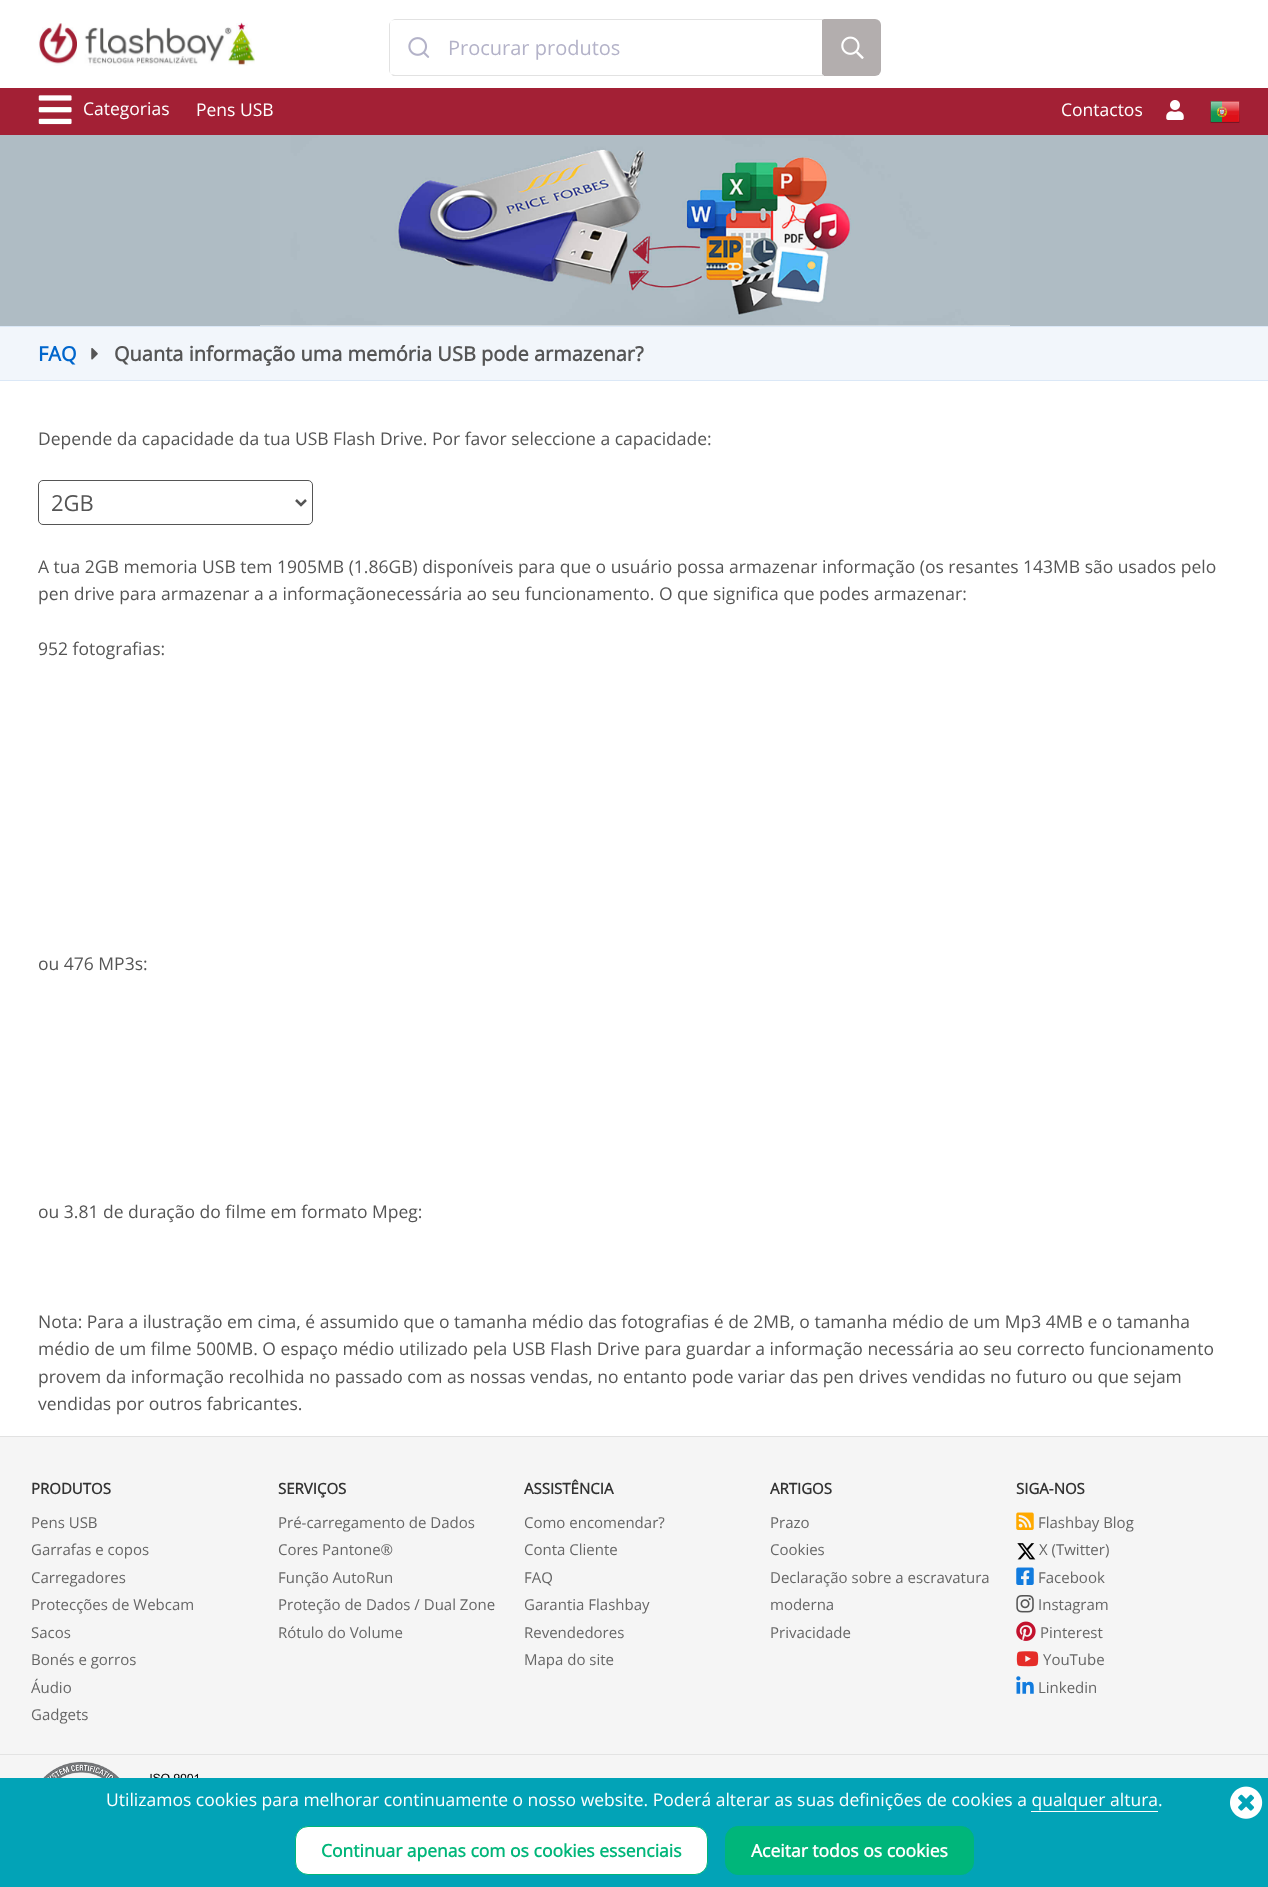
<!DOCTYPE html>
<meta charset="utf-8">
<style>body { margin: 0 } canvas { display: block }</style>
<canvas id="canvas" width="1268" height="1887"></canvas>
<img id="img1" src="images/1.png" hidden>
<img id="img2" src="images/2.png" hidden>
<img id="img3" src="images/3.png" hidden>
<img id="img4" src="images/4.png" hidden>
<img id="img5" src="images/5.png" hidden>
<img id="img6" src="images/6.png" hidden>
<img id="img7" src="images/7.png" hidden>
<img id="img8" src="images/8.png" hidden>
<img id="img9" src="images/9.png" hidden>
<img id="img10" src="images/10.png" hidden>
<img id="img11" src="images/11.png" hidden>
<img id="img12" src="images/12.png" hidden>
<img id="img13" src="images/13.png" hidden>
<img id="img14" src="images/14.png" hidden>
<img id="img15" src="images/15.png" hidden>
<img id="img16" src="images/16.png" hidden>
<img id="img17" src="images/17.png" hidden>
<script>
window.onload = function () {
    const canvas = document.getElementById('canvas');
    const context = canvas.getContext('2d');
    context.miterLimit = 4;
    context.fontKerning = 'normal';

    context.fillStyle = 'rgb(255, 255, 255)';
    context.fillRect(0, 0, 1268, 1887);
    context.drawImage(document.getElementById('img1'), 38, 22, 217, 44);
    context.fillStyle = 'rgb(226, 226, 226)';
    context.beginPath();
    context.moveTo(395, 19);
    context.bezierCurveTo(394, 19, 392, 20, 391, 21);
    context.bezierCurveTo(392, 20, 394, 20, 395, 20);
    context.lineTo(822, 20);
    context.lineTo(824, 19);
    context.closePath();
    context.fill();
    context.fillStyle = 'rgb(179, 174, 174)';
    context.beginPath();
    context.moveTo(824, 76);
    context.lineTo(822, 74);
    context.lineTo(822, 20);
    context.lineTo(824, 19);
    context.closePath();
    context.fill();
    context.fillStyle = 'rgb(226, 226, 226)';
    context.beginPath();
    context.moveTo(824, 76);
    context.lineTo(393, 76);
    context.lineTo(391, 74);
    context.bezierCurveTo(392, 74, 394, 75, 395, 75);
    context.lineTo(822, 75);
    context.lineTo(822, 74);
    context.closePath();
    context.fill();
    context.beginPath();
    context.moveTo(391, 21);
    context.bezierCurveTo(390, 22, 389, 24, 389, 25);
    context.lineTo(389, 70);
    context.bezierCurveTo(389, 72, 390, 73, 391, 74);
    context.bezierCurveTo(390, 73, 390, 72, 390, 70);
    context.lineTo(390, 25);
    context.bezierCurveTo(390, 24, 390, 22, 391, 21);
    context.closePath();
    context.fill();
    context.drawImage(document.getElementById('img2'), 408, 37, 22, 21);
    context.fillStyle = 'rgb(179, 174, 174)';
    context.beginPath();
    context.roundRect(824, 19, 57, 57, [0, 6, 6, 0]);
    context.fill();
    context.drawImage(document.getElementById('img3'), 841, 36, 23, 23);
    context.fillStyle = 'rgb(163, 32, 53)';
    context.fillRect(0, 88, 1268, 47);
    context.drawImage(document.getElementById('img4'), 38, 95, 34, 30);
    context.drawImage(document.getElementById('img5'), 1166, 100, 18, 20);
    context.drawImage(document.getElementById('img6'), 1210, 101, 30, 22);
    context.drawImage(document.getElementById('img7'), 260, 135, 750, 191);
    context.fillStyle = 'rgb(175, 188, 196)';
    context.fillRect(0, 135, 260, 191);
    context.fillRect(1010, 135, 258, 191);
    context.fillStyle = 'rgb(242, 246, 251)';
    context.fillRect(0, 327, 1268, 53);
    context.fillStyle = 'rgb(219, 232, 247)';
    context.fillRect(0, 326, 1268, 1);
    context.fillRect(0, 380, 1268, 1);
    context.drawImage(document.getElementById('img8'), 91, 348, 7, 12);
    context.beginPath();
    context.roundRect(38.5, 480.5, 274, 44, 4.5);
    context.strokeStyle = 'rgb(85, 85, 85)';
    context.stroke();
    context.beginPath();
    context.moveTo(296, 500);
    context.lineTo(301, 505);
    context.lineTo(306, 500);
    context.lineWidth = 2.5;
    context.stroke();
    context.fillStyle = 'rgb(245, 245, 245)';
    context.fillRect(0, 1437, 1268, 341);
    context.fillStyle = 'rgb(226, 226, 226)';
    context.fillRect(0, 1436, 1268, 1);
    context.fillStyle = 'rgb(227, 227, 227)';
    context.fillRect(0, 1754, 1268, 1);
    context.drawImage(document.getElementById('img9'), 1016, 1512, 18, 18);
    context.drawImage(document.getElementById('img10'), 1017, 1543, 19, 17);
    context.drawImage(document.getElementById('img11'), 1016, 1567, 18, 18);
    context.drawImage(document.getElementById('img12'), 1016, 1595, 18, 18);
    context.drawImage(document.getElementById('img13'), 1016, 1621, 20, 20);
    context.drawImage(document.getElementById('img14'), 1016, 1651, 23, 16);
    context.drawImage(document.getElementById('img15'), 1016, 1676, 18, 18);
    context.drawImage(document.getElementById('img16'), 43, 1762, 155, 16);
    context.fillStyle = 'rgb(2, 163, 183)';
    context.fillRect(0, 1778, 1268, 109);
    context.fillStyle = 'rgb(255, 255, 255)';
    context.fillRect(1031, 1811, 127, 1);
    context.drawImage(document.getElementById('img17'), 1230, 1786, 33, 33);
    context.beginPath();
    context.roundRect(295.5, 1826.5, 412, 48, 12.5);
    context.fill();
    context.strokeStyle = 'rgb(0, 182, 122)';
    context.lineWidth = 1;
    context.stroke();
    context.fillStyle = 'rgb(0, 182, 122)';
    context.beginPath();
    context.roundRect(725.5, 1826.5, 248, 48, 12.5);
    context.fill();
    context.stroke();
    context.font = '20px Open Sans';
    context.fillStyle = 'rgb(179, 178, 200)';
    context.fillText('Procurar produtos', 448, 55);
    context.font = '17.5px Open Sans';
    context.fillStyle = 'rgb(255, 255, 255)';
    context.fillText('Categorias', 83, 115);
    context.fillText('Pens USB', 196, 116);
    context.fillText('Contactos', 1061, 116);
    context.font = 'bold 20px Open Sans';
    context.fillStyle = 'rgb(0, 102, 204)';
    context.fillText('FAQ', 38, 361);
    context.fillStyle = 'rgb(85, 85, 85)';
    context.fillText('Quanta informação uma memória USB pode armazenar?', 114, 361);
    context.font = '17.5px Open Sans';
    context.fillText('Depende da capacidade da tua USB Flash Drive. Por favor seleccione a capacidade:', 38, 445);
    context.font = '22px Open Sans';
    context.fillText('2GB', 51, 511);
    context.font = '17.5px Open Sans';
    context.fillText('A tua 2GB memoria USB tem 1905MB (1.86GB) disponíveis para que o usuário possa armazenar informação (os resantes 143MB são usados pelo', 38, 573);
    context.fillText('pen drive para armazenar a a informaçãonecessária ao seu funcionamento. O que significa que podes armazenar:', 38, 600);
    context.fillText('952 fotografias:', 38, 655);
    context.fillText('ou 476 MP3s:', 38, 970);
    context.fillText('ou 3.81 de duração do filme em formato Mpeg:', 38, 1218);
    context.fillText('Nota: Para a ilustração em cima, é assumido que o tamanha médio das fotografias é de 2MB, o tamanha médio de um Mp3 4MB e o tamanha', 38, 1328);
    context.fillText('médio de um filme 500MB. O espaço médio utilizado pela USB Flash Drive para guardar a informação necessária ao seu correcto funcionamento', 38, 1355);
    context.fillText('provem da informação recolhida no passado com as nossas vendas, no entanto pode variar das pen drives vendidas no futuro ou que sejam', 38, 1383);
    context.fillText('vendidas por outros fabricantes.', 38, 1410);
    context.font = 'bold 15px Open Sans';
    context.fillStyle = 'rgb(51, 51, 51)';
    context.fillText('PRODUTOS', 31, 1494);
    context.font = '15px Open Sans';
    context.fillStyle = 'rgb(102, 102, 102)';
    context.fillText('Pens USB', 31, 1528);
    context.fillText('Garrafas e copos', 31, 1555);
    context.fillText('Carregadores', 31, 1583);
    context.fillText('Protecções de Webcam', 31, 1610);
    context.fillText('Sacos', 31, 1638);
    context.fillText('Bonés e gorros', 31, 1665);
    context.fillText('Áudio', 31, 1693);
    context.fillText('Gadgets', 31, 1720);
    context.font = 'bold 15px Open Sans';
    context.fillStyle = 'rgb(51, 51, 51)';
    context.fillText('SERVIÇOS', 278, 1494);
    context.font = '15px Open Sans';
    context.fillStyle = 'rgb(102, 102, 102)';
    context.fillText('Pré-carregamento de Dados', 278, 1528);
    context.fillText('Cores Pantone®', 278, 1555);
    context.fillText('Função AutoRun', 278, 1583);
    context.fillText('Proteção de Dados / Dual Zone', 278, 1610);
    context.fillText('Rótulo do Volume', 278, 1638);
    context.font = 'bold 15px Open Sans';
    context.fillStyle = 'rgb(51, 51, 51)';
    context.fillText('ASSISTÊNCIA', 524, 1494);
    context.font = '15px Open Sans';
    context.fillStyle = 'rgb(102, 102, 102)';
    context.fillText('Como encomendar?', 524, 1528);
    context.fillText('Conta Cliente', 524, 1555);
    context.fillText('FAQ', 524, 1583);
    context.fillText('Garantia Flashbay', 524, 1610);
    context.fillText('Revendedores', 524, 1638);
    context.fillText('Mapa do site', 524, 1665);
    context.font = 'bold 15px Open Sans';
    context.fillStyle = 'rgb(51, 51, 51)';
    context.fillText('ARTIGOS', 770, 1494);
    context.font = '15px Open Sans';
    context.fillStyle = 'rgb(102, 102, 102)';
    context.fillText('Prazo', 770, 1528);
    context.fillText('Cookies', 770, 1555);
    context.fillText('Declaração sobre a escravatura', 770, 1583);
    context.fillText('moderna', 770, 1610);
    context.fillText('Privacidade', 770, 1638);
    context.font = 'bold 15px Open Sans';
    context.fillStyle = 'rgb(51, 51, 51)';
    context.fillText('SIGA-NOS', 1016, 1494);
    context.font = '15px Open Sans';
    context.fillStyle = 'rgb(102, 102, 102)';
    context.fillText('Flashbay Blog', 1038, 1528);
    context.fillText('X (Twitter)', 1039, 1555);
    context.fillText('Facebook', 1038, 1583);
    context.fillText('Instagram', 1038, 1610);
    context.fillText('Pinterest', 1040, 1638);
    context.fillText('YouTube', 1043, 1665);
    context.fillText('Linkedin', 1038, 1693);
    context.font = '17.5px Open Sans';
    context.fillStyle = 'rgb(255, 255, 255)';
    context.fillText('Utilizamos cookies para melhorar continuamente o nosso website. Poderá alterar as suas definições de cookies a qualquer altura.', 106, 1806);
    context.font = 'bold 17.5px Open Sans';
    context.fillStyle = 'rgb(0, 182, 122)';
    context.fillText('Continuar apenas com os cookies essenciais', 321, 1857);
    context.fillStyle = 'rgb(255, 255, 255)';
    context.fillText('Aceitar todos os cookies', 751, 1857);
};
</script>
